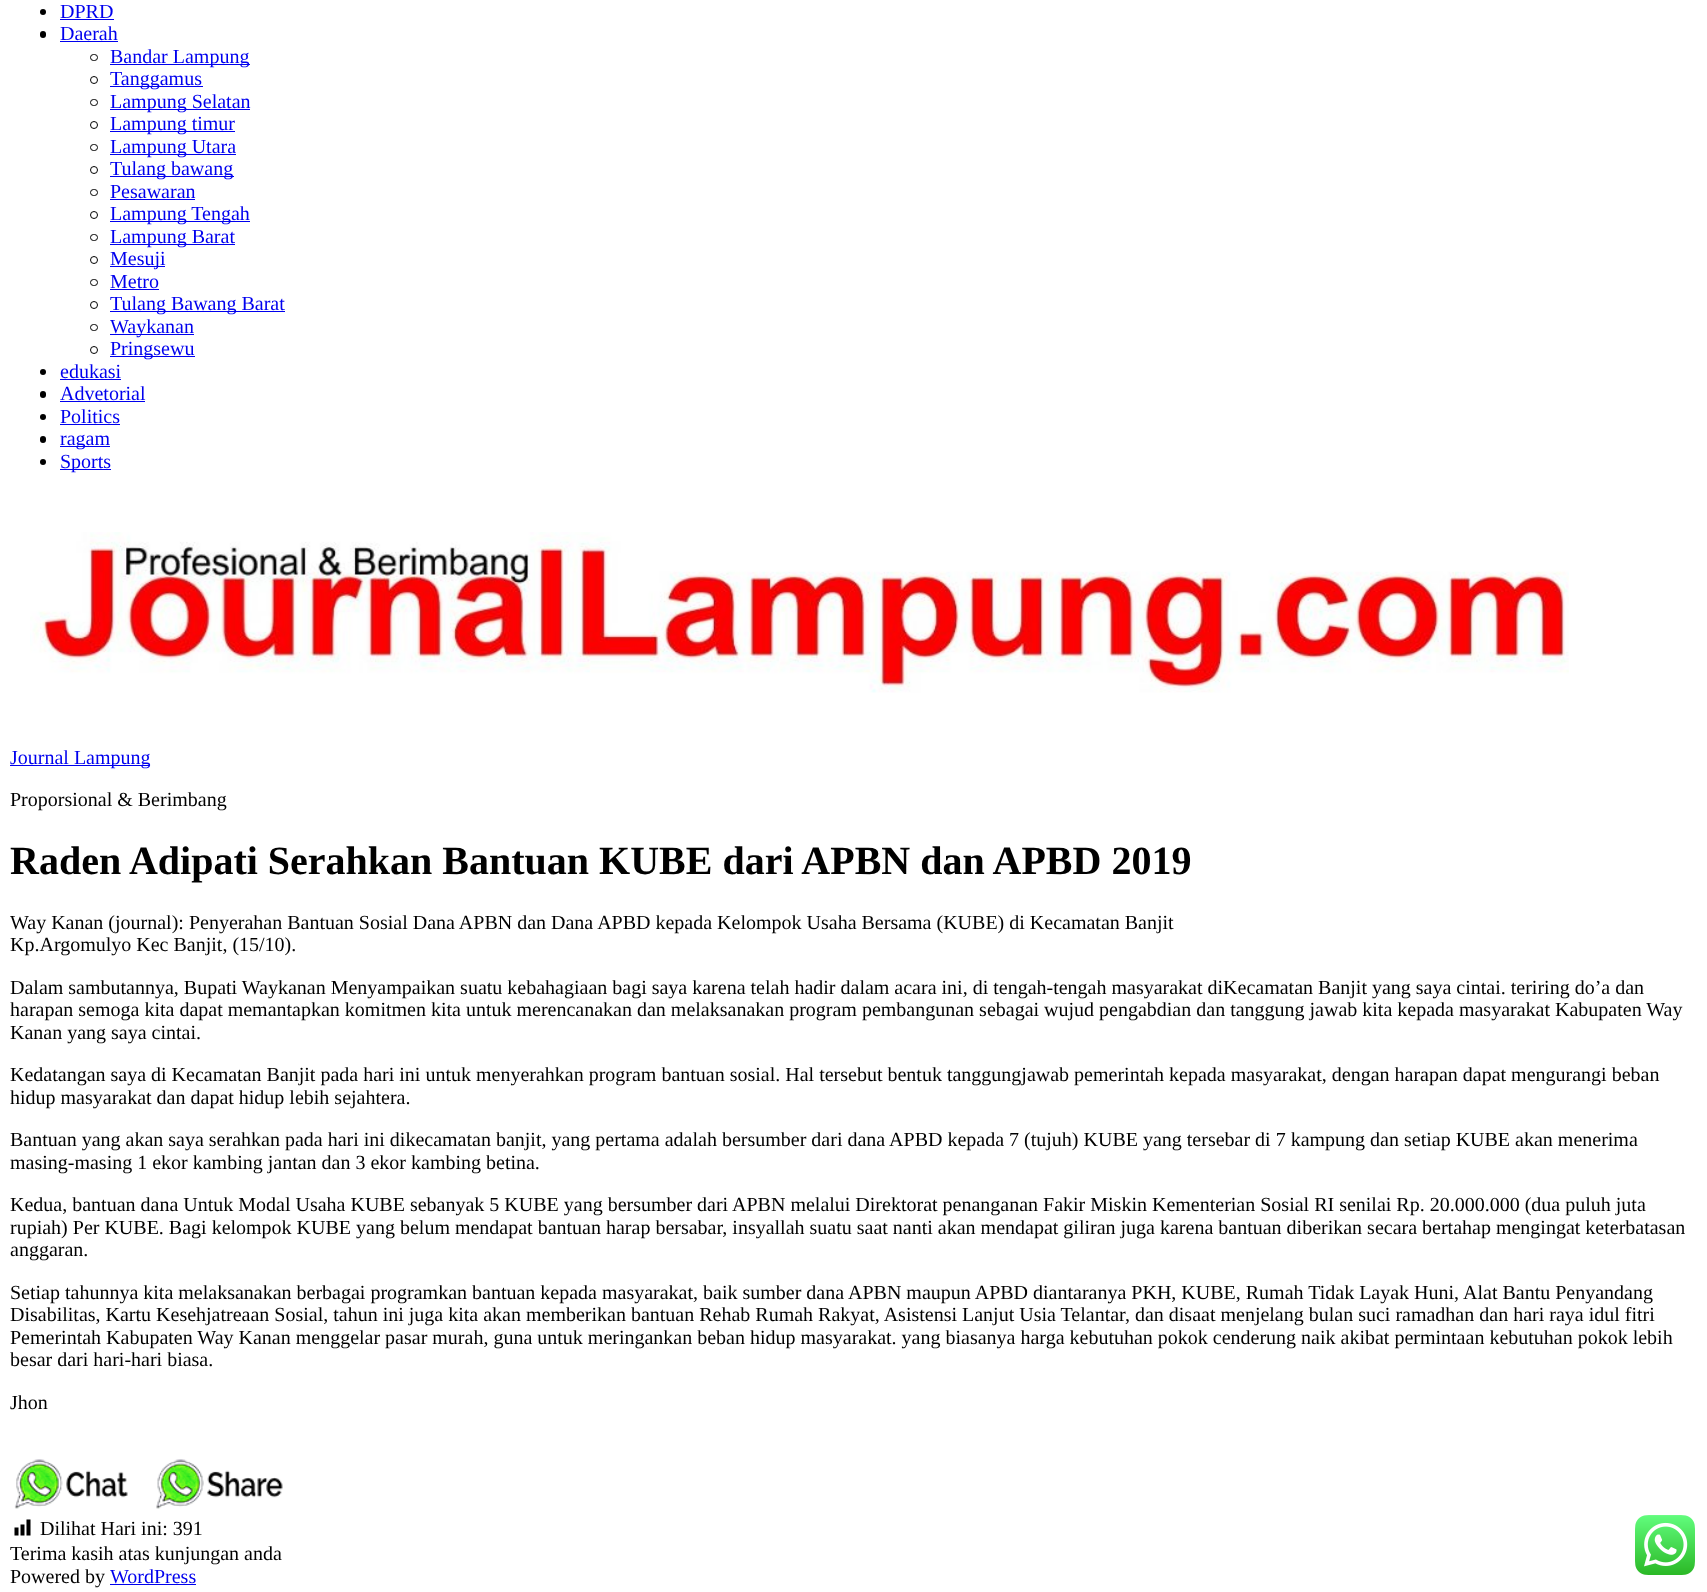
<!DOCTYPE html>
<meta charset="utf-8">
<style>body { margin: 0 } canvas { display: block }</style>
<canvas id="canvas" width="1707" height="1592"></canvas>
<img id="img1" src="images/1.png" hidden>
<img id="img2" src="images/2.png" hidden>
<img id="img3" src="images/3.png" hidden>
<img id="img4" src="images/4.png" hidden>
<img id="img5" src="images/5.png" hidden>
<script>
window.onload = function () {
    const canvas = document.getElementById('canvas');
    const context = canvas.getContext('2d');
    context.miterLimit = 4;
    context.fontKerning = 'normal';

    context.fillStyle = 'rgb(255, 255, 255)';
    context.fillRect(0, 0, 1707, 1592);
    context.fillStyle = 'rgb(0, 0, 0)';
    context.beginPath();
    context.arc(43, 12, 3, 0, 2 * Math.PI);
    context.fill();
    context.fillStyle = 'rgb(0, 0, 238)';
    context.fillRect(60, 19, 54, 1);
    context.fillStyle = 'rgb(0, 0, 0)';
    context.beginPath();
    context.roundRect(40, 31, 6, 7, 3);
    context.fill();
    context.fillStyle = 'rgb(0, 0, 238)';
    context.fillRect(60, 41, 58, 1);
    context.beginPath();
    context.roundRect(90.5, 54.5, 7, 6, 3);
    context.strokeStyle = 'rgb(0, 0, 0)';
    context.stroke();
    context.fillRect(110, 64, 140, 1);
    context.beginPath();
    context.arc(94, 80, 3.5, 0, 2 * Math.PI);
    context.stroke();
    context.fillRect(110, 86, 93, 1);
    context.beginPath();
    context.roundRect(90.5, 99.5, 7, 6, 3);
    context.stroke();
    context.fillRect(110, 109, 140, 1);
    context.beginPath();
    context.arc(94, 125, 3.5, 0, 2 * Math.PI);
    context.stroke();
    context.fillRect(110, 131, 125, 1);
    context.beginPath();
    context.roundRect(90.5, 144.5, 7, 6, 3);
    context.stroke();
    context.fillRect(110, 154, 126, 1);
    context.beginPath();
    context.arc(94, 170, 3.5, 0, 2 * Math.PI);
    context.stroke();
    context.fillRect(110, 176, 124, 1);
    context.beginPath();
    context.roundRect(90.5, 189.5, 7, 6, 3);
    context.stroke();
    context.fillRect(110, 199, 85, 1);
    context.beginPath();
    context.arc(94, 215, 3.5, 0, 2 * Math.PI);
    context.stroke();
    context.fillRect(110, 221, 140, 1);
    context.beginPath();
    context.roundRect(90.5, 234.5, 7, 6, 3);
    context.stroke();
    context.fillRect(110, 244, 125, 1);
    context.beginPath();
    context.arc(94, 260, 3.5, 0, 2 * Math.PI);
    context.stroke();
    context.fillRect(110, 266, 55, 1);
    context.beginPath();
    context.roundRect(90.5, 279.5, 7, 6, 3);
    context.stroke();
    context.fillRect(110, 289, 49, 1);
    context.beginPath();
    context.arc(94, 305, 3.5, 0, 2 * Math.PI);
    context.stroke();
    context.fillRect(110, 311, 175, 1);
    context.beginPath();
    context.roundRect(90.5, 324.5, 7, 6, 3);
    context.stroke();
    context.fillRect(110, 334, 84, 1);
    context.beginPath();
    context.arc(94, 350, 3.5, 0, 2 * Math.PI);
    context.stroke();
    context.fillRect(110, 356, 85, 1);
    context.fillStyle = 'rgb(0, 0, 0)';
    context.beginPath();
    context.arc(43, 372, 3, 0, 2 * Math.PI);
    context.fill();
    context.fillStyle = 'rgb(0, 0, 238)';
    context.fillRect(60, 379, 61, 1);
    context.fillStyle = 'rgb(0, 0, 0)';
    context.beginPath();
    context.roundRect(40, 391, 6, 7, 3);
    context.fill();
    context.fillStyle = 'rgb(0, 0, 238)';
    context.fillRect(60, 401, 85, 1);
    context.fillStyle = 'rgb(0, 0, 0)';
    context.beginPath();
    context.arc(43, 417, 3, 0, 2 * Math.PI);
    context.fill();
    context.fillStyle = 'rgb(0, 0, 238)';
    context.fillRect(60, 424, 60, 1);
    context.fillStyle = 'rgb(0, 0, 0)';
    context.beginPath();
    context.roundRect(40, 436, 6, 7, 3);
    context.fill();
    context.fillStyle = 'rgb(0, 0, 238)';
    context.fillRect(60, 446, 50, 1);
    context.fillStyle = 'rgb(0, 0, 0)';
    context.beginPath();
    context.arc(43, 462, 3, 0, 2 * Math.PI);
    context.fill();
    context.fillStyle = 'rgb(0, 0, 238)';
    context.fillRect(60, 469, 51, 1);
    context.drawImage(document.getElementById('img1'), 30, 532, 1539, 161);
    context.fillRect(10, 765, 140, 1);
    context.drawImage(document.getElementById('img2'), 14, 1459, 114, 50);
    context.drawImage(document.getElementById('img3'), 156, 1459, 127, 50);
    context.drawImage(document.getElementById('img4'), 14, 1519, 17, 17);
    context.fillRect(110, 1584, 86, 1);
    context.drawImage(document.getElementById('img5'), 1635, 1515, 60, 60);
    context.font = '20px Liberation Serif';
    context.fillText('DPRD', 60, 18);
    context.fillText('Daerah', 60, 40);
    context.fillText('Bandar Lampung', 110, 63);
    context.fillText('Tanggamus', 110, 85);
    context.fillText('Lampung Selatan', 110, 108);
    context.fillText('Lampung timur', 110, 130);
    context.fillText('Lampung Utara', 110, 153);
    context.fillText('Tulang bawang', 110, 175);
    context.fillText('Pesawaran', 110, 198);
    context.fillText('Lampung Tengah', 110, 220);
    context.fillText('Lampung Barat', 110, 243);
    context.fillText('Mesuji', 110, 265);
    context.fillText('Metro', 110, 288);
    context.fillText('Tulang Bawang Barat', 110, 310);
    context.fillText('Waykanan', 110, 333);
    context.fillText('Pringsewu', 110, 355);
    context.fillText('edukasi', 60, 378);
    context.fillText('Advetorial', 60, 400);
    context.fillText('Politics', 60, 423);
    context.fillText('ragam', 60, 445);
    context.fillText('Sports', 60, 468);
    context.fillText('Journal Lampung', 10, 764);
    context.fillStyle = 'rgb(0, 0, 0)';
    context.fillText('Proporsional & Berimbang', 10, 806);
    context.font = 'bold 40px Liberation Serif';
    context.fillText('Raden Adipati Serahkan Bantuan KUBE dari APBN dan APBD 2019', 10, 874);
    context.font = '20px Liberation Serif';
    context.fillText('Way Kanan (journal): Penyerahan Bantuan Sosial Dana APBN dan Dana APBD kepada Kelompok Usaha Bersama (KUBE) di Kecamatan Banjit', 10, 929);
    context.fillText('Kp.Argomulyo Kec Banjit, (15/10).', 10, 951);
    context.fillText('Dalam sambutannya, Bupati Waykanan Menyampaikan suatu kebahagiaan bagi saya karena telah hadir dalam acara ini, di tengah-tengah masyarakat diKecamatan Banjit yang saya cintai. teriring do’a dan', 10, 994);
    context.fillText('harapan semoga kita dapat memantapkan komitmen kita untuk merencanakan dan melaksanakan program pembangunan sebagai wujud pengabdian dan tanggung jawab kita kepada masyarakat Kabupaten Way', 10, 1016);
    context.fillText('Kanan yang saya cintai.', 10, 1039);
    context.fillText('Kedatangan saya di Kecamatan Banjit pada hari ini untuk menyerahkan program bantuan sosial. Hal tersebut bentuk tanggungjawab pemerintah kepada masyarakat, dengan harapan dapat mengurangi beban', 10, 1081);
    context.fillText('hidup masyarakat dan dapat hidup lebih sejahtera.', 10, 1104);
    context.fillText('Bantuan yang akan saya serahkan pada hari ini dikecamatan banjit, yang pertama adalah bersumber dari dana APBD kepada 7 (tujuh) KUBE yang tersebar di 7 kampung dan setiap KUBE akan menerima', 10, 1146);
    context.fillText('masing-masing 1 ekor kambing jantan dan 3 ekor kambing betina.', 10, 1169);
    context.fillText('Kedua, bantuan dana Untuk Modal Usaha KUBE sebanyak 5 KUBE yang bersumber dari APBN melalui Direktorat penanganan Fakir Miskin Kementerian Sosial RI senilai Rp. 20.000.000 (dua puluh juta', 10, 1211);
    context.fillText('rupiah) Per KUBE. Bagi kelompok KUBE yang belum mendapat bantuan harap bersabar, insyallah suatu saat nanti akan mendapat giliran juga karena bantuan diberikan secara bertahap mengingat keterbatasan', 10, 1234);
    context.fillText('anggaran.', 10, 1256);
    context.fillText('Setiap tahunnya kita melaksanakan berbagai programkan bantuan kepada masyarakat, baik sumber dana APBN maupun APBD diantaranya PKH, KUBE, Rumah Tidak Layak Huni, Alat Bantu Penyandang', 10, 1299);
    context.fillText('Disabilitas, Kartu Kesehjatreaan Sosial, tahun ini juga kita akan memberikan bantuan Rehab Rumah Rakyat, Asistensi Lanjut Usia Telantar, dan disaat menjelang bulan suci ramadhan dan hari raya idul fitri', 10, 1321);
    context.fillText('Pemerintah Kabupaten Way Kanan menggelar pasar murah, guna untuk meringankan beban hidup masyarakat. yang biasanya harga kebutuhan pokok cenderung naik akibat permintaan kebutuhan pokok lebih', 10, 1344);
    context.fillText('besar dari hari-hari biasa.', 10, 1366);
    context.fillText('Jhon', 10, 1409);
    context.fillText('Dilihat Hari ini: 391', 40, 1535);
    context.fillText('Terima kasih atas kunjungan anda', 10, 1560);
    context.fillText('Powered by', 10, 1583);
    context.fillStyle = 'rgb(0, 0, 238)';
    context.fillText('WordPress', 110, 1583);
};
</script>
